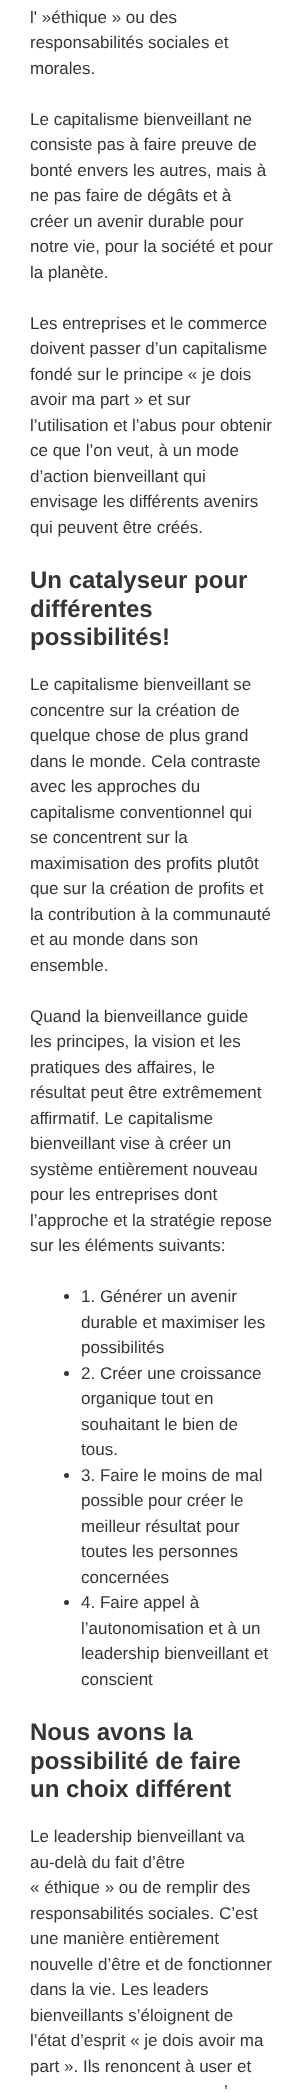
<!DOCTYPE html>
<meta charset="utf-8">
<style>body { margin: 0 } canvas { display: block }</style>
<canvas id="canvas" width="303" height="2093"></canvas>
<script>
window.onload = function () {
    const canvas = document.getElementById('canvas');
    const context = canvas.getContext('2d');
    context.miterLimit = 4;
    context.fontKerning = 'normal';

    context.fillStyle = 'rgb(255, 255, 255)';
    context.fillRect(0, 0, 303, 2093);
    context.fillStyle = 'rgb(53, 53, 53)';
    context.beginPath();
    context.arc(66.5, 1296.5, 2.5, 0, 2 * Math.PI);
    context.fill();
    context.beginPath();
    context.arc(66.5, 1373.5, 2.5, 0, 2 * Math.PI);
    context.fill();
    context.beginPath();
    context.arc(66.5, 1475.5, 2.5, 0, 2 * Math.PI);
    context.fill();
    context.beginPath();
    context.arc(66.5, 1602.5, 2.5, 0, 2 * Math.PI);
    context.fill();
    context.font = '17px Liberation Sans';
    context.fillText('l\' »éthique » ou des', 30, 23);
    context.fillText('responsabilités sociales et', 30, 48);
    context.fillText('morales.', 30, 74);
    context.fillText('Le capitalisme bienveillant ne', 30, 125);
    context.fillText('consiste pas à faire preuve de', 30, 150);
    context.fillText('bonté envers les autres, mais à', 30, 176);
    context.fillText('ne pas faire de dégâts et à', 30, 201);
    context.fillText('créer un avenir durable pour', 30, 227);
    context.fillText('notre vie, pour la société et pour', 30, 252);
    context.fillText('la planète.', 30, 278);
    context.fillText('Les entreprises et le commerce', 30, 329);
    context.fillText('doivent passer d’un capitalisme', 30, 354);
    context.fillText('fondé sur le principe « je dois', 30, 380);
    context.fillText('avoir ma part » et sur', 30, 405);
    context.fillText('l’utilisation et l’abus pour obtenir', 30, 431);
    context.fillText('ce que l’on veut, à un mode', 30, 456);
    context.fillText('d’action bienveillant qui', 30, 482);
    context.fillText('envisage les différents avenirs', 30, 507);
    context.fillText('qui peuvent être créés.', 30, 533);
    context.font = 'bold 24px Liberation Sans';
    context.fillText('Un catalyseur pour', 30, 588);
    context.fillText('différentes', 30, 617);
    context.fillText('possibilités!', 30, 645);
    context.font = '17px Liberation Sans';
    context.fillText('Le capitalisme bienveillant se', 30, 690);
    context.fillText('concentre sur la création de', 30, 716);
    context.fillText('quelque chose de plus grand', 30, 741);
    context.fillText('dans le monde. Cela contraste', 30, 767);
    context.fillText('avec les approches du', 30, 792);
    context.fillText('capitalisme conventionnel qui', 30, 818);
    context.fillText('se concentrent sur la', 30, 843);
    context.fillText('maximisation des profits plutôt', 30, 869);
    context.fillText('que sur la création de profits et', 30, 894);
    context.fillText('la contribution à la communauté', 30, 920);
    context.fillText('et au monde dans son', 30, 945);
    context.fillText('ensemble.', 30, 971);
    context.fillText('Quand la bienveillance guide', 30, 1022);
    context.fillText('les principes, la vision et les', 30, 1047);
    context.fillText('pratiques des affaires, le', 30, 1073);
    context.fillText('résultat peut être extrêmement', 30, 1098);
    context.fillText('affirmatif. Le capitalisme', 30, 1124);
    context.fillText('bienveillant vise à créer un', 30, 1149);
    context.fillText('système entièrement nouveau', 30, 1175);
    context.fillText('pour les entreprises dont', 30, 1200);
    context.fillText('l’approche et la stratégie repose', 30, 1226);
    context.fillText('sur les éléments suivants:', 30, 1251);
    context.fillText('1. Générer un avenir', 81, 1302);
    context.fillText('durable et maximiser les', 81, 1328);
    context.fillText('possibilités', 81, 1353);
    context.fillText('2. Créer une croissance', 81, 1379);
    context.fillText('organique tout en', 81, 1404);
    context.fillText('souhaitant le bien de', 81, 1430);
    context.fillText('tous.', 81, 1455);
    context.fillText('3. Faire le moins de mal', 81, 1481);
    context.fillText('possible pour créer le', 81, 1506);
    context.fillText('meilleur résultat pour', 81, 1532);
    context.fillText('toutes les personnes', 81, 1557);
    context.fillText('concernées', 81, 1583);
    context.fillText('4. Faire appel à', 81, 1608);
    context.fillText('l’autonomisation et à un', 81, 1634);
    context.fillText('leadership bienveillant et', 81, 1659);
    context.fillText('conscient', 81, 1685);
    context.font = 'bold 24px Liberation Sans';
    context.fillText('Nous avons la', 30, 1740);
    context.fillText('possibilité de faire', 30, 1769);
    context.fillText('un choix différent', 30, 1797);
    context.font = '17px Liberation Sans';
    context.fillText('Le leadership bienveillant va', 30, 1842);
    context.fillText('au-delà du fait d’être', 30, 1868);
    context.fillText('« éthique » ou de remplir des', 30, 1893);
    context.fillText('responsabilités sociales. C’est', 30, 1919);
    context.fillText('une manière entièrement', 30, 1944);
    context.fillText('nouvelle d’être et de fonctionner', 30, 1970);
    context.fillText('dans la vie. Les leaders', 30, 1995);
    context.fillText('bienveillants s’éloignent de', 30, 2021);
    context.fillText('l’état d’esprit « je dois avoir ma', 30, 2046);
    context.fillText('part ». Ils renoncent à user et', 30, 2072);
    context.fillText('’', 224, 2097);
};
</script>
